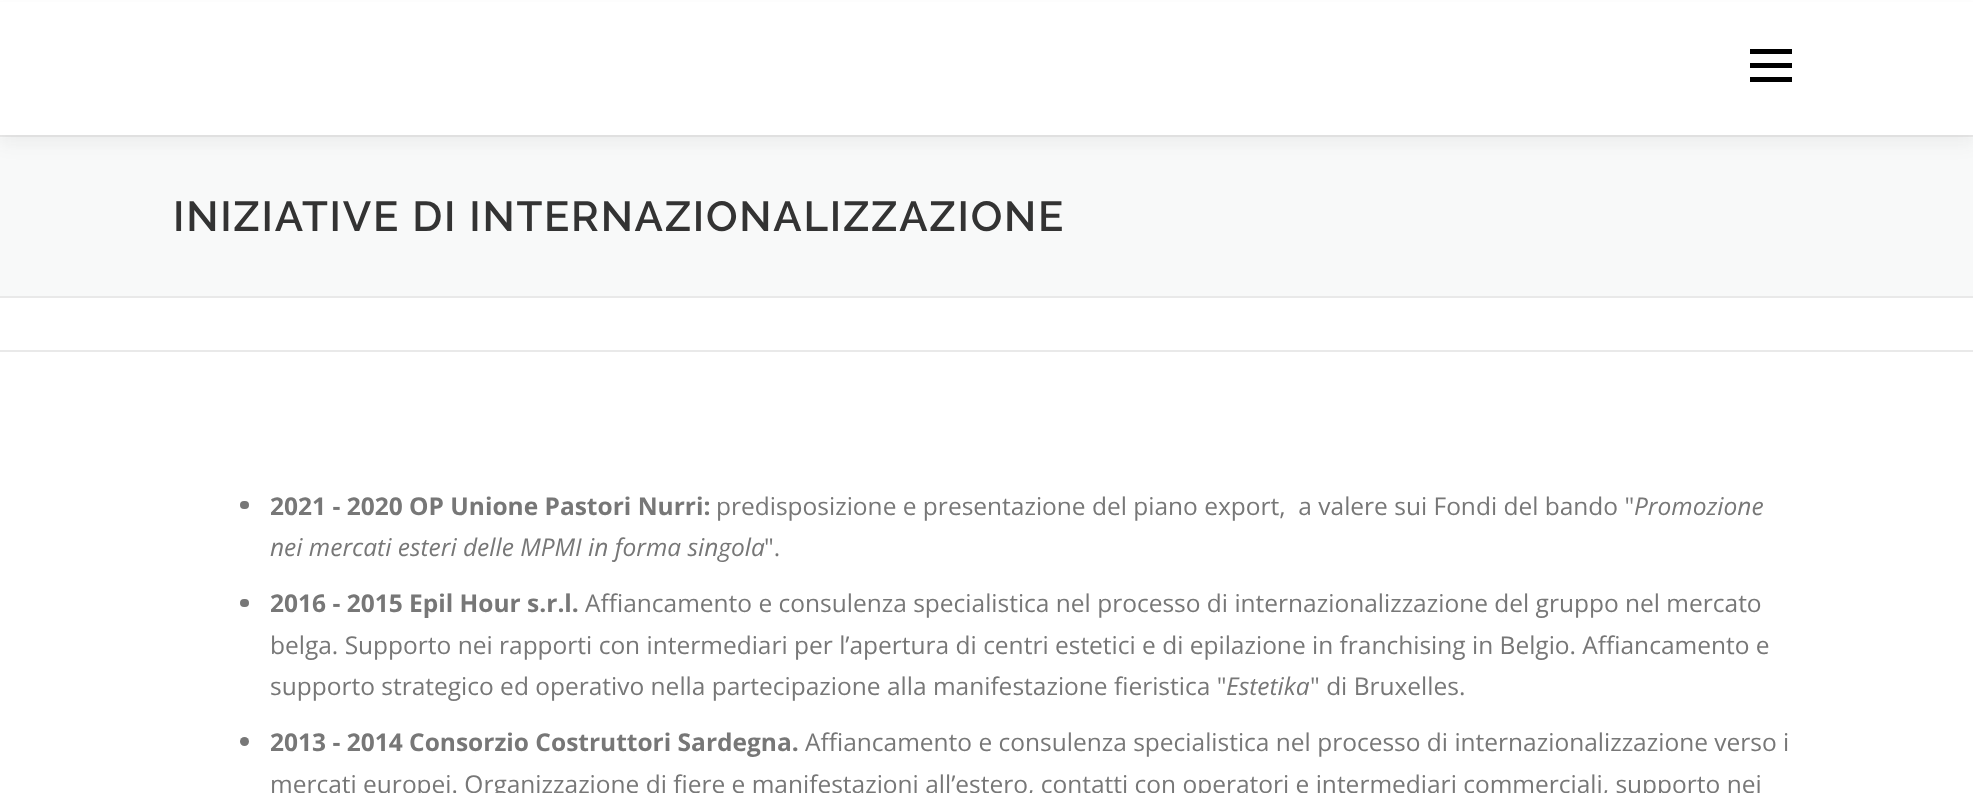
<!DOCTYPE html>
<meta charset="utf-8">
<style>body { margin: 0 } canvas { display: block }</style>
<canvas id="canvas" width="1973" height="793"></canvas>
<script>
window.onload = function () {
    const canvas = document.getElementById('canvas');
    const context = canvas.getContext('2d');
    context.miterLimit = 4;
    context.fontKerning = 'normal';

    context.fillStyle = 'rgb(255, 255, 255)';
    context.fillRect(0, 0, 1973, 793);
    context.fillStyle = 'rgb(248, 249, 249)';
    context.fillRect(0, 137, 1973, 159);
    context.fillStyle = 'rgb(233, 233, 233)';
    context.fillRect(0, 135, 1973, 2);
    context.fillStyle = 'rgba(50, 50, 50, 0.06)';
    context.filter = 'blur(9px)';
    context.beginPath();
    context.rect(0, 9, 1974, 135);
    context.fill();
    context.filter = 'none';
    context.fillStyle = 'rgb(255, 255, 255)';
    context.fillRect(0, 2, 1973, 133);
    context.fillStyle = 'rgb(0, 0, 0)';
    context.fillRect(1750, 63, 42, 5);
    context.fillRect(1750, 49, 42, 5);
    context.fillRect(1750, 77, 42, 5);
    context.fillStyle = 'rgb(233, 233, 233)';
    context.fillRect(0, 296, 1973, 2);
    context.fillRect(0, 350, 1973, 2);
    context.fillStyle = 'rgb(119, 119, 119)';
    context.beginPath();
    context.roundRect(240, 501, 9, 8, 4);
    context.fill();
    context.beginPath();
    context.roundRect(240, 599, 9, 8, 4);
    context.fill();
    context.beginPath();
    context.arc(244.5, 741.5, 4.5, 0, 2 * Math.PI);
    context.fill();
    context.letterSpacing = '1.75px';
    context.font = '600 42px Raleway';
    context.fillStyle = 'rgb(51, 51, 51)';
    context.fillText('INIZIATIVE DI INTERNAZIONALIZZAZIONE', 173, 231);
    context.letterSpacing = '0px';
    context.font = 'bold 24.5px Open Sans';
    context.fillStyle = 'rgb(119, 119, 119)';
    context.fillText('2021 - 2020 OP Unione Pastori Nurri:', 270, 515);
    context.font = '24.5px Open Sans';
    context.fillText('predisposizione e presentazione del piano export,  a valere sui Fondi del bando "', 716, 515);
    context.font = 'italic 24.5px Open Sans';
    context.fillText('Promozione', 1634, 515);
    context.fillText('nei mercati esteri delle MPMI in forma singola', 270, 556);
    context.font = '24.5px Open Sans';
    context.fillText('".', 764, 556);
    context.font = 'bold 24.5px Open Sans';
    context.fillText('2016 - 2015 Epil Hour s.r.l.', 270, 612);
    context.font = '24.5px Open Sans';
    context.fillText('Affiancamento e consulenza specialistica nel processo di internazionalizzazione del gruppo nel mercato', 585, 612);
    context.fillText('belga. Supporto nei rapporti con intermediari per l’apertura di centri estetici e di epilazione in franchising in Belgio. Affiancamento e', 270, 654);
    context.fillText('supporto strategico ed operativo nella partecipazione alla manifestazione fieristica "', 270, 695);
    context.font = 'italic 24.5px Open Sans';
    context.fillText('Estetika', 1226, 695);
    context.font = '24.5px Open Sans';
    context.fillText('" di Bruxelles.', 1310, 695);
    context.font = 'bold 24.5px Open Sans';
    context.fillText('2013 - 2014 Consorzio Costruttori Sardegna.', 270, 751);
    context.font = '24.5px Open Sans';
    context.fillText('Affiancamento e consulenza specialistica nel processo di internazionalizzazione verso i', 805, 751);
    context.fillText('mercati europei. Organizzazione di fiere e manifestazioni all’estero, contatti con operatori e intermediari commerciali, supporto nei', 270, 793);
};
</script>
